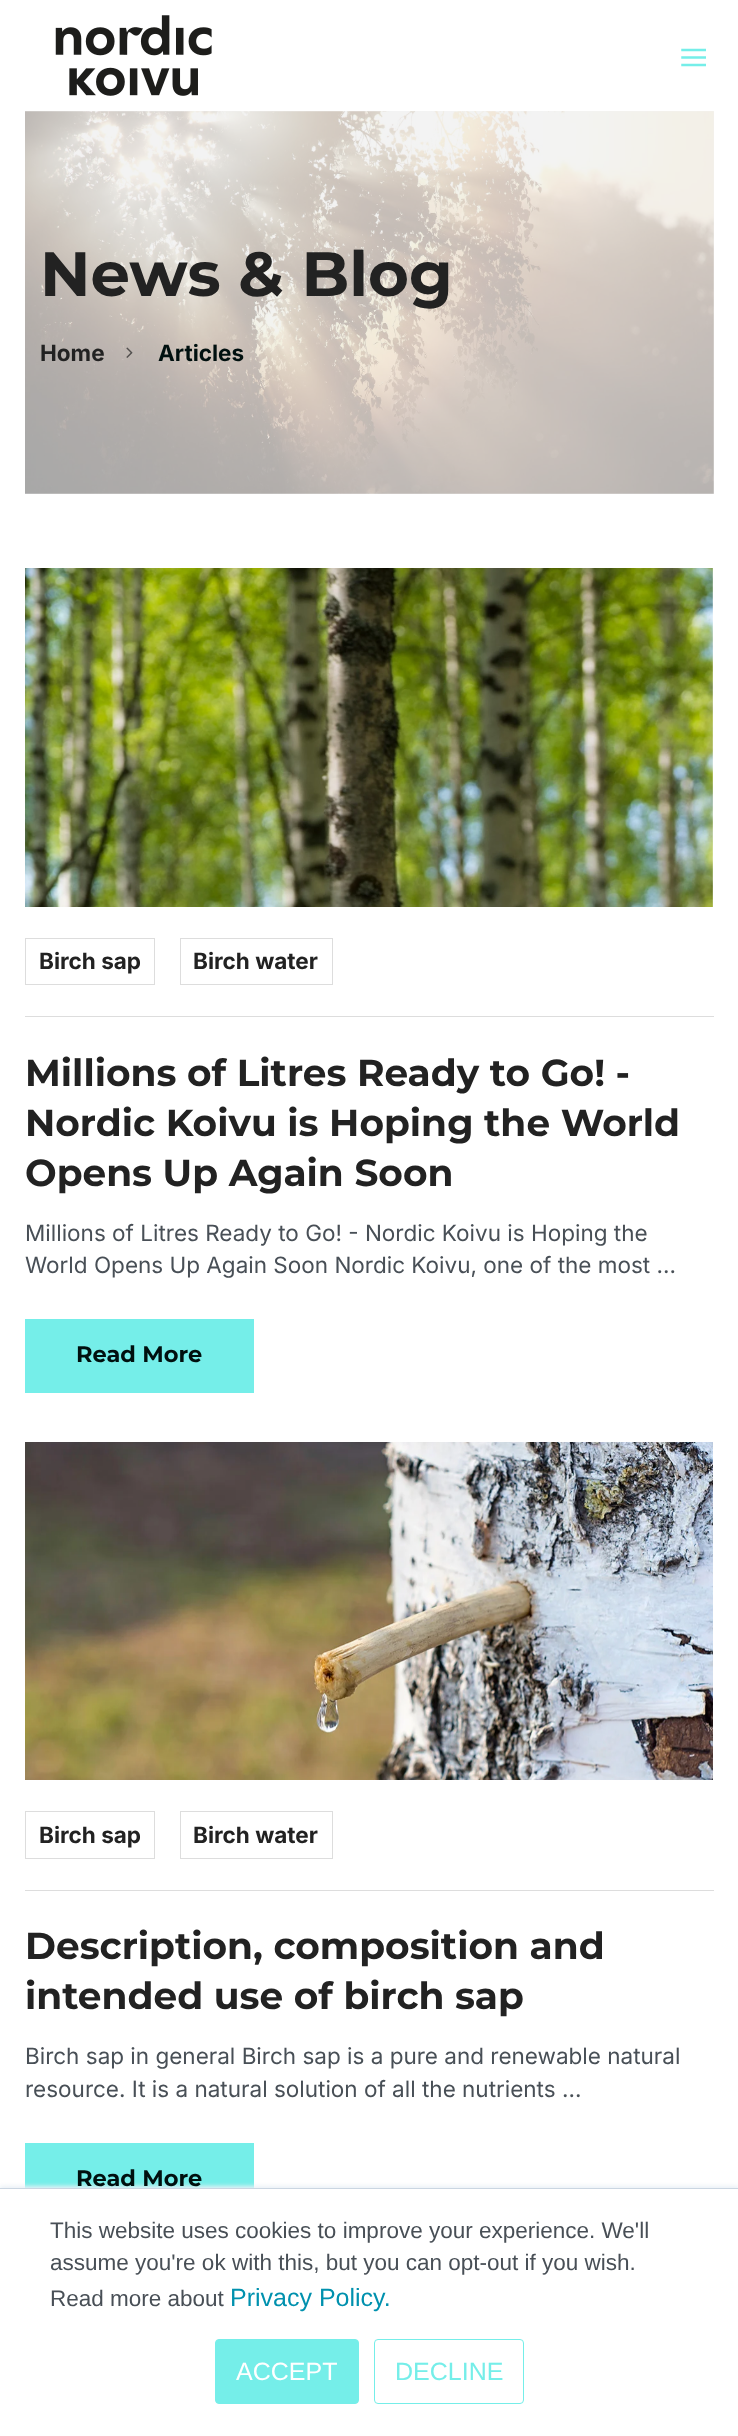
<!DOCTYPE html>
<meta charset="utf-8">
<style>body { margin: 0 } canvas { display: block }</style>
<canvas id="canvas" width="738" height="2436"></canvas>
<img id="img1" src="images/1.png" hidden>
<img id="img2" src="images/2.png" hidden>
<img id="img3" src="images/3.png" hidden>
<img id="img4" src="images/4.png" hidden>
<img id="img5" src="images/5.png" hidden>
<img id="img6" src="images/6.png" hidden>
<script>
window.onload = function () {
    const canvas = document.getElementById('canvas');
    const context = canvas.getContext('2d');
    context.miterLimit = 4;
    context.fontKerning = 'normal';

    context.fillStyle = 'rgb(255, 255, 255)';
    context.fillRect(0, 0, 738, 2436);
    context.fillStyle = 'rgb(243, 243, 243)';
    context.fillRect(25, 111, 689, 383);
    context.drawImage(document.getElementById('img1'), 55, 15, 157, 81);
    context.drawImage(document.getElementById('img2'), 681, 48, 25, 19);
    context.drawImage(document.getElementById('img3'), 25, 111, 689, 383);
    context.drawImage(document.getElementById('img4'), 126, 347, 7, 11);
    context.drawImage(document.getElementById('img5'), 25, 568, 688, 339);
    context.fillStyle = 'rgb(221, 221, 221)';
    context.fillRect(25, 1016, 689, 1);
    context.strokeStyle = 'rgb(221, 221, 221)';
    context.strokeRect(25.5, 938.5, 129, 46);
    context.strokeRect(180.5, 938.5, 152, 46);
    context.fillStyle = 'rgb(117, 238, 233)';
    context.fillRect(25, 1319, 229, 74);
    context.drawImage(document.getElementById('img6'), 25, 1442, 688, 338);
    context.fillStyle = 'rgb(221, 221, 221)';
    context.fillRect(25, 1890, 689, 1);
    context.strokeRect(25.5, 1811.5, 129, 47);
    context.strokeRect(180.5, 1811.5, 152, 47);
    context.fillStyle = 'rgb(117, 238, 233)';
    context.fillRect(25, 2143, 229, 45);
    context.fillStyle = 'rgb(234, 240, 246)';
    context.filter = 'blur(2px)';
    context.beginPath();
    context.rect(0, 2186, 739, 249);
    context.fill();
    context.filter = 'none';
    context.fillStyle = 'rgb(255, 255, 255)';
    context.fillRect(0, 2189, 738, 247);
    context.fillStyle = 'rgb(203, 214, 226)';
    context.fillRect(0, 2188, 738, 1);
    context.fillStyle = 'rgb(117, 238, 233)';
    context.beginPath();
    context.roundRect(215.5, 2339.5, 143, 64, 3.5);
    context.fill();
    context.strokeStyle = 'rgb(117, 238, 233)';
    context.stroke();
    context.beginPath();
    context.roundRect(374.5, 2339.5, 149, 64, 3.5);
    context.stroke();
    context.font = 'bold 62.5px Montserrat';
    context.fillStyle = 'rgb(34, 34, 34)';
    context.fillText('News & Blog', 40, 296);
    context.font = 'bold 22.5px Inter';
    context.fillText('Home', 40, 361);
    context.fillStyle = 'rgb(0, 16, 15)';
    context.fillText('Articles', 158, 361);
    context.fillStyle = 'rgb(34, 34, 34)';
    context.fillText('Birch sap', 39, 969);
    context.fillText('Birch water', 193, 969);
    context.font = 'bold 37.5px Montserrat';
    context.fillText('Millions of Litres Ready to Go! -', 25, 1086);
    context.fillText('Nordic Koivu is Hoping the World', 25, 1136);
    context.fillText('Opens Up Again Soon', 25, 1186);
    context.font = '22.5px Inter';
    context.fillStyle = 'rgb(72, 79, 86)';
    context.fillText('Millions of Litres Ready to Go! - Nordic Koivu is Hoping the', 25, 1241);
    context.fillText('World Opens Up Again Soon Nordic Koivu, one of the most ...', 25, 1273);
    context.font = 'bold 22.5px Montserrat';
    context.fillStyle = 'rgb(0, 16, 15)';
    context.fillText('Read More', 76, 1362);
    context.font = 'bold 22.5px Inter';
    context.fillStyle = 'rgb(34, 34, 34)';
    context.fillText('Birch sap', 39, 1843);
    context.fillText('Birch water', 193, 1843);
    context.font = 'bold 37.5px Montserrat';
    context.fillText('Description, composition and', 25, 1959);
    context.fillText('intended use of birch sap', 25, 2009);
    context.font = '22.5px Inter';
    context.fillStyle = 'rgb(72, 79, 86)';
    context.fillText('Birch sap in general Birch sap is a pure and renewable natural', 25, 2064);
    context.fillText('resource. It is a natural solution of all the nutrients ...', 25, 2097);
    context.font = 'bold 22.5px Montserrat';
    context.fillStyle = 'rgb(0, 16, 15)';
    context.fillText('Read More', 76, 2186);
    context.font = '22.5px Liberation Sans';
    context.fillStyle = 'rgb(72, 79, 86)';
    context.fillText('This website uses cookies to improve your experience. We\'ll', 50, 2238);
    context.fillText('assume you\'re ok with this, but you can opt-out if you wish.', 50, 2270);
    context.fillText('Read more about', 50, 2306);
    context.font = '25px Liberation Sans';
    context.fillStyle = 'rgb(0, 145, 174)';
    context.fillText('Privacy Policy.', 230, 2306);
    context.fillStyle = 'rgb(255, 255, 255)';
    context.fillText('ACCEPT', 236, 2380);
    context.fillStyle = 'rgb(117, 238, 233)';
    context.fillText('DECLINE', 395, 2380);
};
</script>
